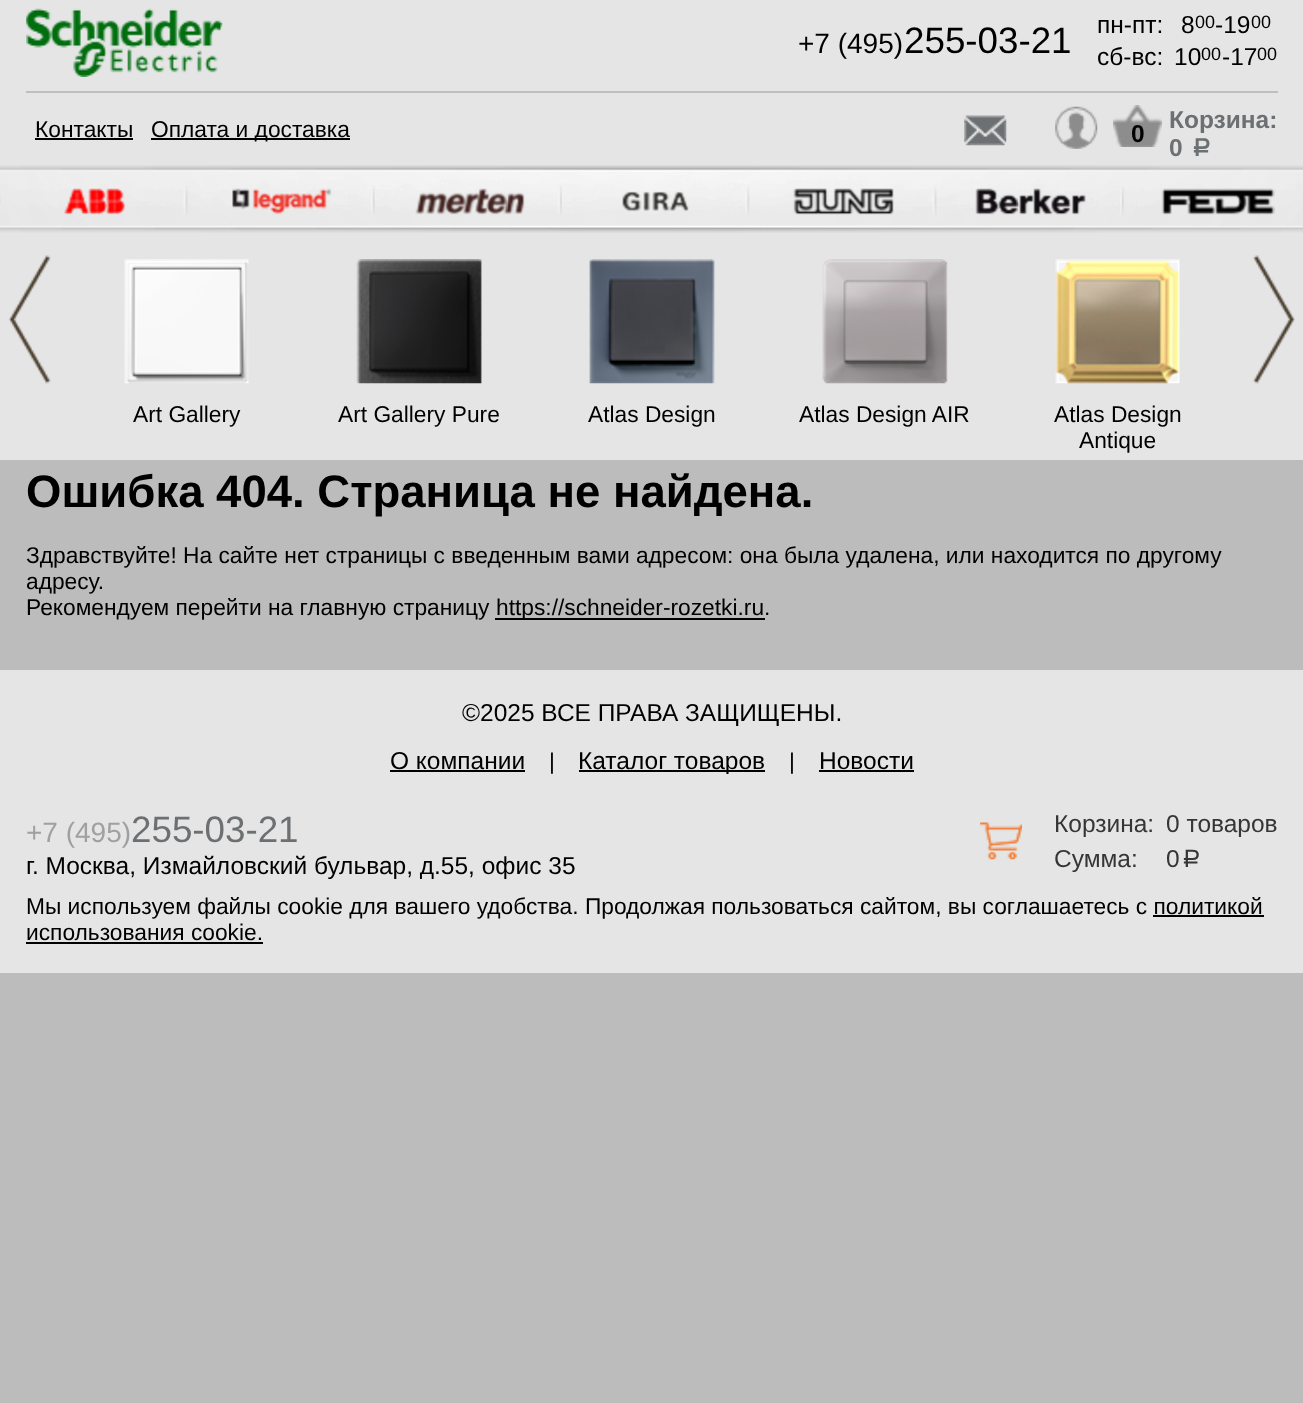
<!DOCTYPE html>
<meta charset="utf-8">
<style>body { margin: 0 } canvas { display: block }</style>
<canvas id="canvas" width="1303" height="1403"></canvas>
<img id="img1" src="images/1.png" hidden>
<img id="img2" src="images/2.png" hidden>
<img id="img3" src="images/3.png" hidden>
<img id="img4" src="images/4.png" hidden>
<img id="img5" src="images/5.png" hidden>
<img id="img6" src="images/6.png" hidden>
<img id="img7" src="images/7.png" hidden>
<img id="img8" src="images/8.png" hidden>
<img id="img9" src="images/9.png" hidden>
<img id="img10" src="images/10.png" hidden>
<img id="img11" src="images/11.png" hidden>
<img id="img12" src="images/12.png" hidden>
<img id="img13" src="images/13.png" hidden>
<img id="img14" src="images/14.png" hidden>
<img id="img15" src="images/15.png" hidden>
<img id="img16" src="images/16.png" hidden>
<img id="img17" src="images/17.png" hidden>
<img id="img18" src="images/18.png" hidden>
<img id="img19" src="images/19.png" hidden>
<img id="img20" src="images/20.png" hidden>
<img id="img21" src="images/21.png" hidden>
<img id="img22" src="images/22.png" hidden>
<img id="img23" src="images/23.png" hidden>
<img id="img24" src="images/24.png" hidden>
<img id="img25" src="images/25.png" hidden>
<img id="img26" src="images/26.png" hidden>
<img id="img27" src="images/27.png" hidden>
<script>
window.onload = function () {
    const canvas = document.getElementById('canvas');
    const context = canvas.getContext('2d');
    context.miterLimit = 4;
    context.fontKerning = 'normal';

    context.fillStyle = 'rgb(188, 188, 188)';
    context.fillRect(0, 0, 1303, 1403);
    context.fillStyle = 'rgb(229, 229, 229)';
    context.fillRect(0, 0, 1303, 460);
    context.drawImage(document.getElementById('img1'), 26, 8, 197, 69);
    context.fillStyle = 'rgb(191, 191, 191)';
    context.fillRect(26, 91, 1252, 2);
    context.fillStyle = 'rgb(0, 0, 0)';
    context.fillRect(35, 138, 98, 2);
    context.fillRect(151, 138, 199, 2);
    context.drawImage(document.getElementById('img2'), 964, 115, 43, 31);
    context.drawImage(document.getElementById('img3'), 1055, 106, 43, 43);
    context.drawImage(document.getElementById('img4'), 1113, 105, 49, 42);
    context.drawImage(document.getElementById('img5'), 0, 165, 1303, 68);
    context.drawImage(document.getElementById('img6'), 0, 195, 1, 10);
    context.drawImage(document.getElementById('img7'), 64, 188, 61, 27);
    context.drawImage(document.getElementById('img8'), 183, 186, 5, 28);
    context.drawImage(document.getElementById('img9'), 232, 188, 100, 27);
    context.drawImage(document.getElementById('img10'), 371, 185, 4, 30);
    context.drawImage(document.getElementById('img11'), 415, 188, 110, 27);
    context.drawImage(document.getElementById('img12'), 558, 185, 4, 29);
    context.drawImage(document.getElementById('img13'), 622, 191, 67, 21);
    context.drawImage(document.getElementById('img14'), 745, 185, 5, 30);
    context.drawImage(document.getElementById('img15'), 793, 188, 101, 27);
    context.drawImage(document.getElementById('img16'), 932, 186, 5, 29);
    context.drawImage(document.getElementById('img17'), 975, 188, 111, 27);
    context.drawImage(document.getElementById('img18'), 1120, 186, 4, 29);
    context.drawImage(document.getElementById('img19'), 1161, 188, 114, 27);
    context.drawImage(document.getElementById('img20'), 8, 255, 43, 129);
    context.drawImage(document.getElementById('img21'), 1253, 255, 42, 129);
    context.drawImage(document.getElementById('img22'), 124, 259, 125, 125);
    context.drawImage(document.getElementById('img23'), 356, 259, 126, 125);
    context.drawImage(document.getElementById('img24'), 589, 259, 126, 125);
    context.drawImage(document.getElementById('img25'), 822, 259, 126, 125);
    context.drawImage(document.getElementById('img26'), 1055, 259, 125, 125);
    context.fillRect(495, 618, 270, 2);
    context.fillStyle = 'rgb(229, 229, 229)';
    context.fillRect(0, 670, 1303, 303);
    context.fillStyle = 'rgb(0, 0, 0)';
    context.fillRect(390, 770, 135, 2);
    context.fillRect(579, 770, 186, 2);
    context.fillRect(819, 770, 95, 2);
    context.drawImage(document.getElementById('img27'), 980, 822, 42, 38);
    context.fillRect(1153, 915, 111, 2);
    context.fillRect(26, 942, 237, 2);
    context.font = '28px Liberation Sans';
    context.fillText('+7 (495)', 798, 53);
    context.font = '36.75px Liberation Sans';
    context.fillText('255-03-21', 904, 53);
    context.font = '24.5px Liberation Sans';
    context.fillText('пн-пт:', 1097, 33);
    context.fillText('8', 1181, 33);
    context.font = '18px Liberation Sans';
    context.fillText('00', 1195, 28);
    context.font = '24.5px Liberation Sans';
    context.fillText('-19', 1215, 33);
    context.font = '18px Liberation Sans';
    context.fillText('00', 1251, 28);
    context.font = '24.5px Liberation Sans';
    context.fillText('сб-вс:', 1097, 65);
    context.fillText('10', 1174, 65);
    context.font = '18px Liberation Sans';
    context.fillText('00', 1201, 60);
    context.font = '24.5px Liberation Sans';
    context.fillText('-17', 1222, 65);
    context.font = '18px Liberation Sans';
    context.fillText('00', 1257, 60);
    context.font = '22.75px Liberation Sans';
    context.fillText('Контакты', 35, 137);
    context.fillText('Оплата и доставка', 151, 137);
    context.font = 'bold 24.5px Liberation Sans';
    context.fillText('0', 1131, 142);
    context.fillStyle = 'rgb(108, 112, 114)';
    context.fillText('Корзина:', 1169, 128);
    context.fillText('0', 1169, 156);
    context.font = 'bold 24.5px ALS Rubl';
    context.fillText('a', 1190, 156);
    context.font = '22.75px Liberation Sans';
    context.fillStyle = 'rgb(0, 0, 0)';
    context.fillText('Art Gallery', 133, 422);
    context.fillText('Art Gallery Pure', 338, 422);
    context.fillText('Atlas Design', 588, 422);
    context.fillText('Atlas Design AIR', 799, 422);
    context.fillText('Atlas Design', 1054, 422);
    context.fillText('Antique', 1079, 448);
    context.font = 'bold 45.5px Liberation Sans';
    context.fillText('Ошибка 404. Страница не найдена.', 26, 507);
    context.font = '22.75px Liberation Sans';
    context.fillText('Здравствуйте! На сайте нет страницы с введенным вами адресом: она была удалена, или находится по другому', 26, 563);
    context.fillText('адресу.', 26, 589);
    context.fillText('Рекомендуем перейти на главную страницу', 26, 615);
    context.fillText('https://schneider-rozetki.ru.', 496, 615);
    context.font = '24.5px Liberation Sans';
    context.fillText('©2025 ВСЕ ПРАВА ЗАЩИЩЕНЫ.', 462, 721);
    context.fillText('О компании', 390, 769);
    context.font = '22.75px Liberation Sans';
    context.fillText('|', 549, 769);
    context.font = '24.5px Liberation Sans';
    context.fillText('Каталог товаров', 578, 769);
    context.font = '22.75px Liberation Sans';
    context.fillText('|', 789, 769);
    context.font = '24.5px Liberation Sans';
    context.fillText('Новости', 819, 769);
    context.font = '28px Liberation Sans';
    context.fillStyle = 'rgb(160, 160, 160)';
    context.fillText('+7 (495)', 26, 842);
    context.font = '36.75px Liberation Sans';
    context.fillStyle = 'rgb(108, 112, 114)';
    context.fillText('255-03-21', 131, 842);
    context.font = '24.5px Liberation Sans';
    context.fillStyle = 'rgb(0, 0, 0)';
    context.fillText('г. Москва, Измайловский бульвар, д.55, офис 35', 26, 874);
    context.fillStyle = 'rgb(54, 54, 54)';
    context.fillText('Корзина:', 1054, 832);
    context.fillText('0 товаров', 1166, 832);
    context.fillText('Сумма:', 1054, 867);
    context.fillText('0', 1166, 867);
    context.font = '24.5px ALS Rubl';
    context.fillText('a', 1180, 867);
    context.font = '22.75px Liberation Sans';
    context.fillStyle = 'rgb(0, 0, 0)';
    context.fillText('Мы используем файлы cookie для вашего удобства. Продолжая пользоваться сайтом, вы соглашаетесь с политикой', 26, 914);
    context.fillText('использования cookie.', 26, 940);
};
</script>
